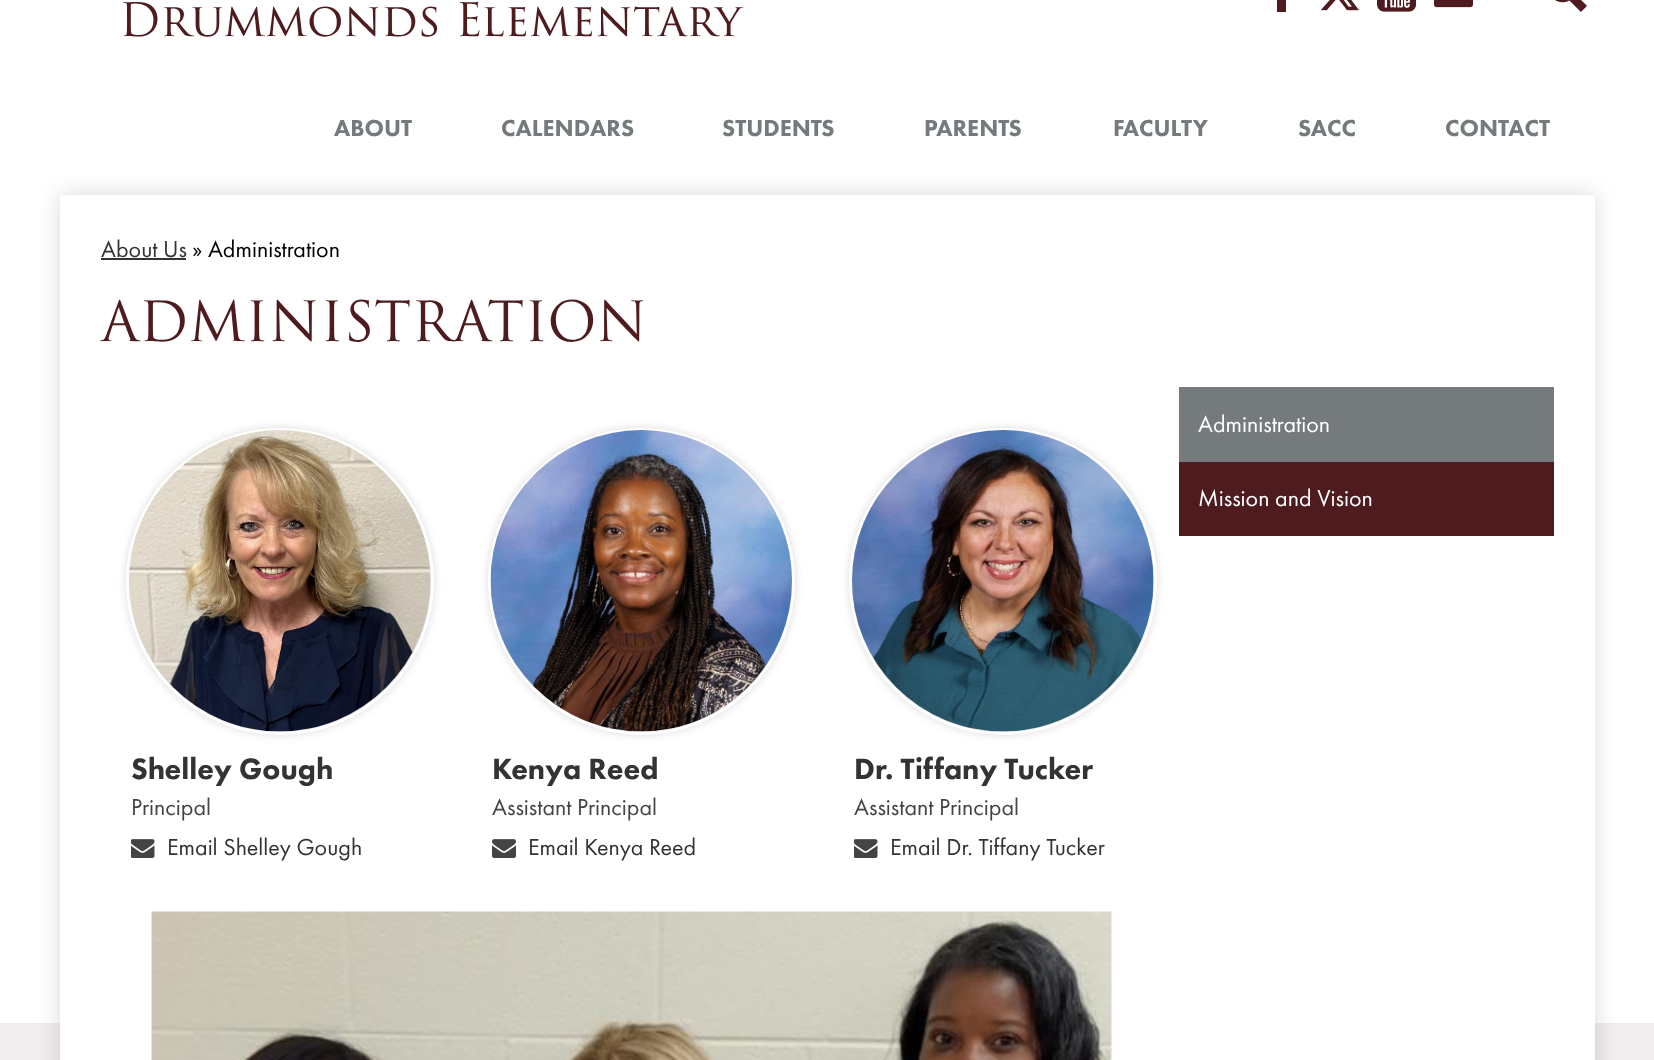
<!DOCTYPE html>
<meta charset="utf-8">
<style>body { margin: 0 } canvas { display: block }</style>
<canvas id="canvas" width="1654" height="1060"></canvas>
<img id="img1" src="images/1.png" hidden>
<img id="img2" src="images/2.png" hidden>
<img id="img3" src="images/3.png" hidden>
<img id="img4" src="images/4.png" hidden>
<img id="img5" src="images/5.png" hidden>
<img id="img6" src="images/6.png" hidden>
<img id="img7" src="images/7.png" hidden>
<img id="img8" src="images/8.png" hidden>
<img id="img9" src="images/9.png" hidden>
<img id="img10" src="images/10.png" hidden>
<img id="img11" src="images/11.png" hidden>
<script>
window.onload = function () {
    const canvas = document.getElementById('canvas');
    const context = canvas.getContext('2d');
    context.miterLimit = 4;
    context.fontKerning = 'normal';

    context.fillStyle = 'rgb(241, 237, 238)';
    context.fillRect(0, 0, 1654, 1060);
    context.fillStyle = 'rgb(255, 255, 255)';
    context.fillRect(0, 0, 1654, 1023);
    context.fillStyle = 'rgb(78, 28, 31)';
    context.fillRect(1277, 0, 9, 12);
    context.drawImage(document.getElementById('img1'), 1320, 0, 39, 11);
    context.drawImage(document.getElementById('img2'), 1377, 0, 39, 12);
    context.drawImage(document.getElementById('img3'), 1434, 0, 39, 8);
    context.drawImage(document.getElementById('img4'), 1519, 0, 7, 1);
    context.drawImage(document.getElementById('img5'), 1555, 0, 32, 12);
    context.fillStyle = 'rgba(0, 0, 0, 0.15)';
    context.filter = 'blur(11px)';
    context.beginPath();
    context.rect(60, 195, 1535, 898);
    context.fill();
    context.filter = 'none';
    context.fillStyle = 'rgb(255, 255, 255)';
    context.fillRect(60, 195, 1535, 865);
    context.fillStyle = 'rgb(51, 51, 51)';
    context.fillRect(101, 258, 85, 2);
    context.fillStyle = 'rgb(78, 28, 31)';
    context.fillRect(1179, 462, 375, 74);
    context.fillStyle = 'rgb(117, 122, 125)';
    context.fillRect(1179, 387, 375, 75);
    context.fillStyle = 'rgba(0, 0, 0, 0.14)';
    context.filter = 'blur(4px)';
    context.beginPath();
    context.roundRect(126, 428, 308, 307, 153.5);
    context.fill();
    context.filter = 'none';
    context.beginPath();
    context.roundRect(127.5, 429.5, 305, 304, 152);
    context.strokeStyle = 'rgb(255, 255, 255)';
    context.lineWidth = 3;
    context.stroke();
    context.drawImage(document.getElementById('img6'), 129, 430, 302, 302);
    context.drawImage(document.getElementById('img7'), 131, 839, 24, 19);
    context.filter = 'blur(4px)';
    context.beginPath();
    context.roundRect(488, 428, 307, 307, 153.5);
    context.fill();
    context.filter = 'none';
    context.beginPath();
    context.arc(641.5, 581.5, 152, 0, 2 * Math.PI);
    context.stroke();
    context.drawImage(document.getElementById('img8'), 490, 430, 302, 302);
    context.drawImage(document.getElementById('img9'), 492, 839, 24, 19);
    context.filter = 'blur(4px)';
    context.beginPath();
    context.roundRect(849, 428, 308, 307, 153.5);
    context.fill();
    context.filter = 'none';
    context.beginPath();
    context.roundRect(850.5, 429.5, 305, 304, 152);
    context.stroke();
    context.drawImage(document.getElementById('img10'), 852, 430, 302, 302);
    context.drawImage(document.getElementById('img7'), 854, 839, 24, 19);
    context.drawImage(document.getElementById('img11'), 151, 911, 961, 149);
    context.font = '45.1px "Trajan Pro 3"';
    context.fillStyle = 'rgb(78, 28, 31)';
    context.fillText('Drummonds Elementary', 119, 36);
    context.font = '900 24px Futura PT';
    context.fillStyle = 'rgb(117, 122, 125)';
    context.fillText('ABOUT', 334, 136);
    context.fillText('CALENDARS', 501, 136);
    context.fillText('STUDENTS', 722, 136);
    context.fillText('PARENTS', 924, 136);
    context.fillText('FACULTY', 1113, 136);
    context.fillText('SACC', 1298, 136);
    context.fillText('CONTACT', 1445, 136);
    context.font = '24px Futura PT';
    context.fillStyle = 'rgb(51, 51, 51)';
    context.fillText('About Us', 101, 257);
    context.fillStyle = 'rgb(0, 0, 0)';
    context.fillText('» Administration', 192, 257);
    context.font = '54px "Trajan Pro 3"';
    context.fillStyle = 'rgb(78, 28, 31)';
    context.fillText('ADMINISTRATION', 101, 341);
    context.font = '24px Futura PT';
    context.fillStyle = 'rgb(255, 255, 255)';
    context.fillText('Administration', 1198, 432);
    context.fillText('Mission and Vision', 1198, 506);
    context.font = '900 30.5px Futura PT';
    context.fillStyle = 'rgb(51, 51, 51)';
    context.fillText('Shelley Gough', 131, 779);
    context.font = '24px Futura PT';
    context.fillStyle = 'rgb(68, 68, 68)';
    context.fillText('Principal', 131, 815);
    context.fillStyle = 'rgb(51, 51, 51)';
    context.fillText('Email Shelley Gough', 167, 855);
    context.font = '900 30.5px Futura PT';
    context.fillText('Kenya Reed', 492, 779);
    context.font = '24px Futura PT';
    context.fillStyle = 'rgb(68, 68, 68)';
    context.fillText('Assistant Principal', 492, 815);
    context.fillStyle = 'rgb(51, 51, 51)';
    context.fillText('Email Kenya Reed', 528, 855);
    context.font = '900 30.5px Futura PT';
    context.fillText('Dr. Tiffany Tucker', 854, 779);
    context.font = '24px Futura PT';
    context.fillStyle = 'rgb(68, 68, 68)';
    context.fillText('Assistant Principal', 854, 815);
    context.fillStyle = 'rgb(51, 51, 51)';
    context.fillText('Email Dr. Tiffany Tucker', 890, 855);
};
</script>
